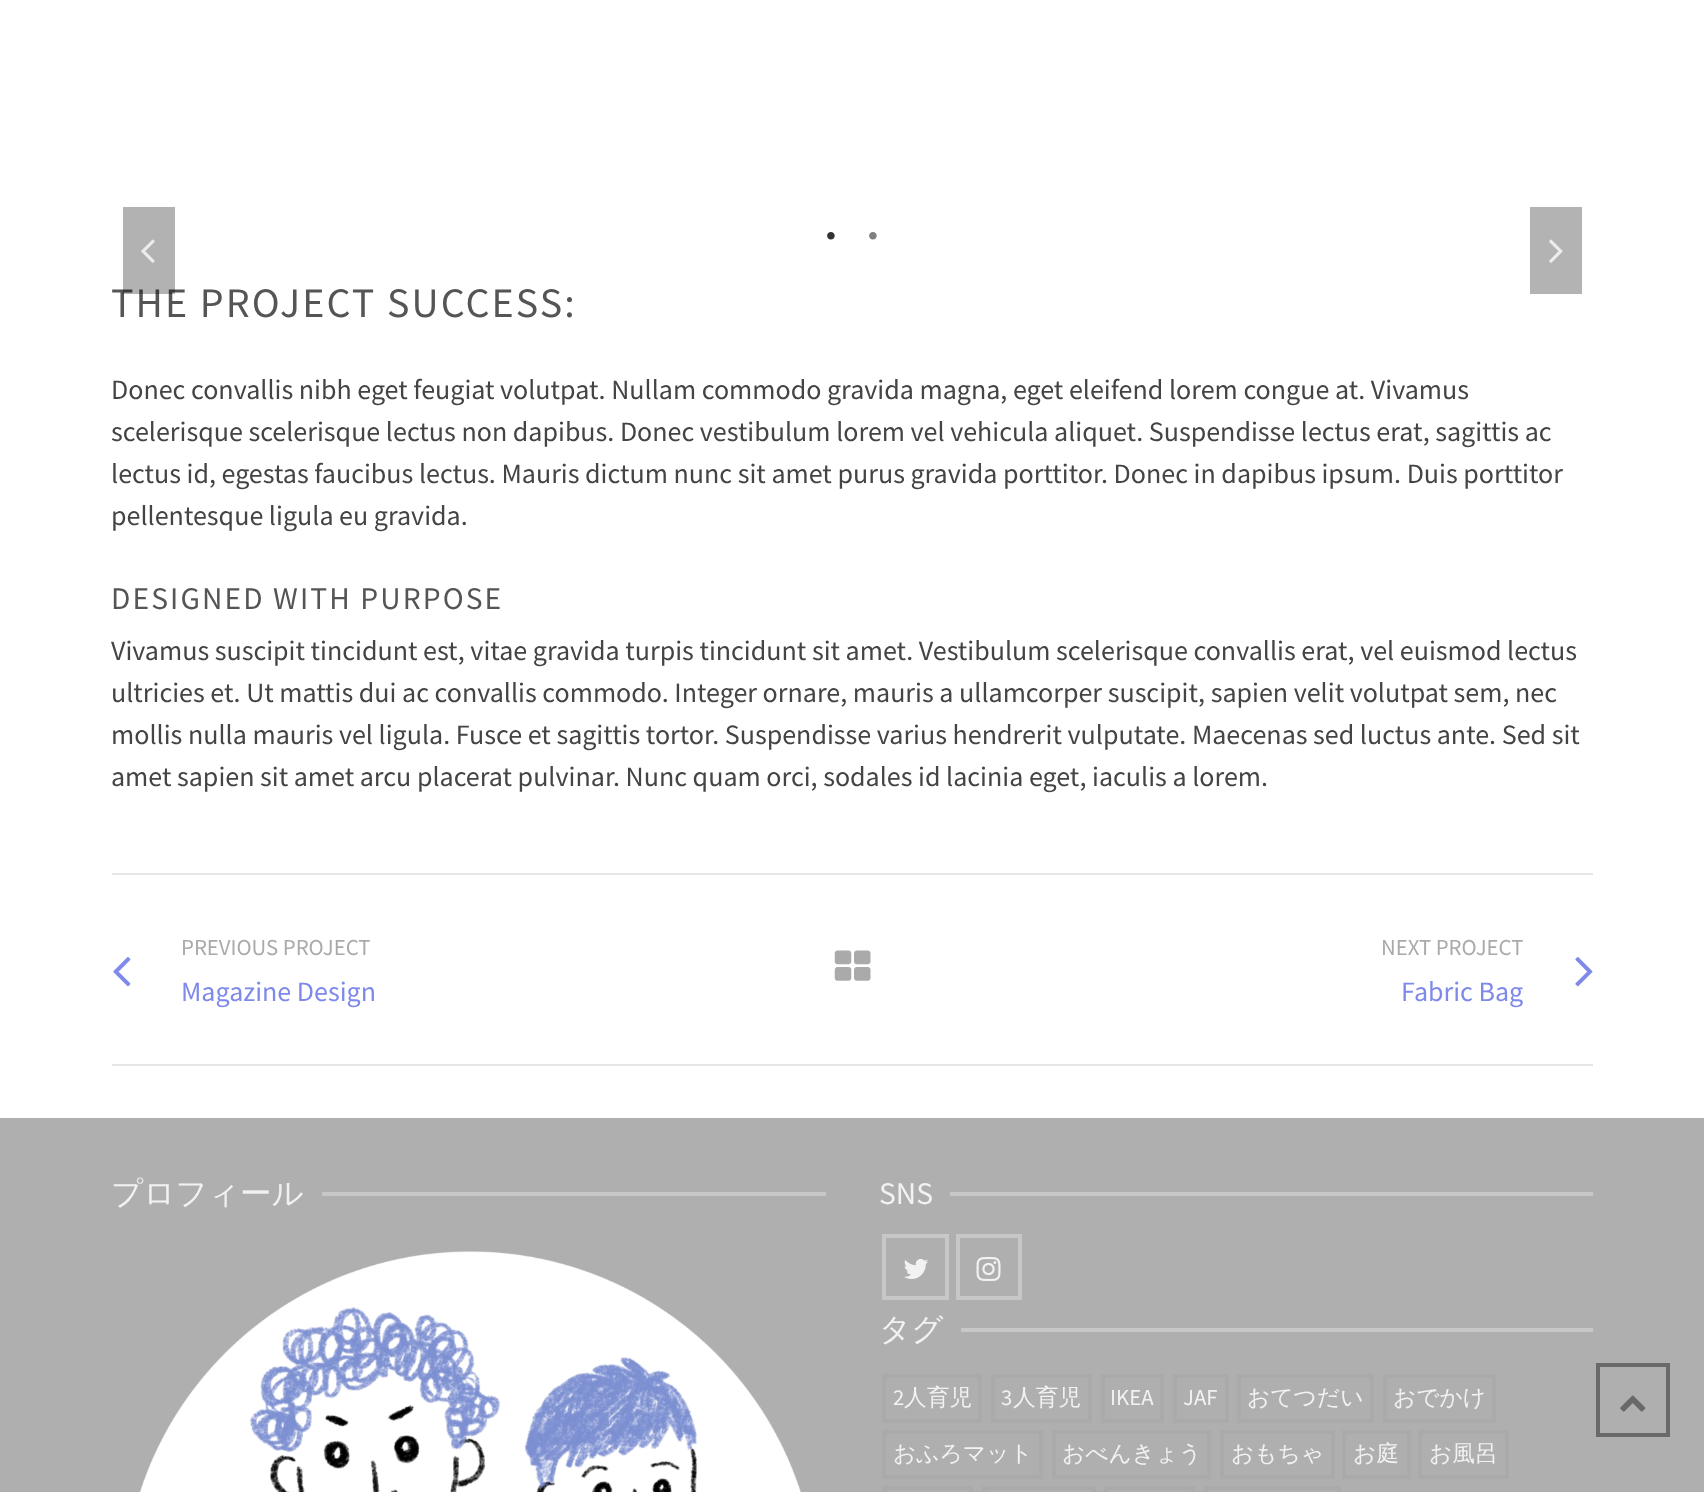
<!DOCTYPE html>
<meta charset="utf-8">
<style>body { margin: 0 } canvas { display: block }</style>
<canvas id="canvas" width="1704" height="1492"></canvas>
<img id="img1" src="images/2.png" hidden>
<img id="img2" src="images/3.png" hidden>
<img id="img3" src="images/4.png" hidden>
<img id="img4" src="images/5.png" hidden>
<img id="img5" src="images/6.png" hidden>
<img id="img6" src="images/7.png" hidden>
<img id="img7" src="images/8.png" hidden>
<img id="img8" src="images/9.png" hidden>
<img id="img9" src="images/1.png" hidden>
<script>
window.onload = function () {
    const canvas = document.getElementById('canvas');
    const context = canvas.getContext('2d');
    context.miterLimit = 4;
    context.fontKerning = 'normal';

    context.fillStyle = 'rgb(255, 255, 255)';
    context.fillRect(0, 0, 1704, 1492);
    context.fillStyle = 'rgb(179, 179, 179)';
    context.fillRect(1530, 207, 52, 87);
    context.drawImage(document.getElementById('img1'), 1549, 239, 14, 24);
    context.fillStyle = 'rgb(230, 230, 230)';
    context.fillRect(112, 873, 1481, 2);
    context.fillRect(112, 1064, 1481, 2);
    context.drawImage(document.getElementById('img2'), 113, 957, 18, 30);
    context.drawImage(document.getElementById('img3'), 834, 950, 37, 31);
    context.drawImage(document.getElementById('img4'), 1575, 957, 18, 30);
    context.fillStyle = 'rgb(175, 175, 175)';
    context.fillRect(0, 1118, 1704, 374);
    context.fillStyle = 'rgb(199, 199, 199)';
    context.fillRect(322, 1192, 504, 4);
    context.drawImage(document.getElementById('img5'), 140, 1251, 661, 241);
    context.fillRect(950, 1192, 643, 4);
    context.strokeStyle = 'rgb(199, 199, 199)';
    context.lineWidth = 4;
    context.strokeRect(884, 1236, 63, 62);
    context.drawImage(document.getElementById('img6'), 904, 1259, 24, 20);
    context.strokeRect(958, 1236, 62, 62);
    context.drawImage(document.getElementById('img7'), 976, 1257, 25, 24);
    context.fillRect(961, 1328, 632, 4);
    context.strokeStyle = 'rgb(170, 170, 170)';
    context.strokeRect(884, 1376, 96, 45);
    context.strokeRect(993, 1376, 97, 45);
    context.strokeRect(1103, 1376, 59, 45);
    context.strokeRect(1175, 1376, 52, 45);
    context.strokeRect(1239, 1376, 133, 45);
    context.strokeRect(1385, 1376, 109, 45);
    context.strokeRect(884, 1432, 157, 45);
    context.strokeRect(1054, 1432, 155, 45);
    context.strokeRect(1222, 1432, 111, 45);
    context.strokeRect(1344, 1432, 65, 45);
    context.strokeRect(1420, 1432, 87, 45);
    context.strokeRect(884, 1488, 87, 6);
    context.strokeRect(984, 1488, 110, 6);
    context.strokeRect(1106, 1488, 87, 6);
    context.strokeRect(1206, 1488, 133, 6);
    context.strokeStyle = 'rgb(105, 105, 105)';
    context.strokeRect(1598, 1365, 70, 70);
    context.drawImage(document.getElementById('img8'), 1620, 1395, 26, 17);
    context.font = 'bold 28px Liberation Serif';
    context.fillStyle = 'rgb(51, 51, 51)';
    context.fillText('•', 826, 245);
    context.fillStyle = 'rgb(128, 128, 128)';
    context.fillText('•', 868, 245);
    context.letterSpacing = '2.1px';
    context.font = '42px Source Sans Pro';
    context.fillStyle = 'rgb(85, 85, 85)';
    context.fillText('THE PROJECT SUCCESS:', 111, 317);
    context.fillStyle = 'rgba(0, 0, 0, 0.3)';
    context.fillRect(123, 207, 52, 87);
    context.drawImage(document.getElementById('img9'), 141, 239, 14, 24);
    context.letterSpacing = '0px';
    context.font = '28px Source Sans Pro';
    context.fillStyle = 'rgb(68, 68, 68)';
    context.fillText('Donec convallis nibh eget feugiat volutpat. Nullam commodo gravida magna, eget eleifend lorem congue at. Vivamus', 111, 399);
    context.fillText('scelerisque scelerisque lectus non dapibus. Donec vestibulum lorem vel vehicula aliquet. Suspendisse lectus erat, sagittis ac', 111, 441);
    context.fillText('lectus id, egestas faucibus lectus. Mauris dictum nunc sit amet purus gravida porttitor. Donec in dapibus ipsum. Duis porttitor', 111, 483);
    context.fillText('pellentesque ligula eu gravida.', 111, 525);
    context.letterSpacing = '2.1px';
    context.font = '31.5px Source Sans Pro';
    context.fillStyle = 'rgb(85, 85, 85)';
    context.fillText('DESIGNED WITH PURPOSE', 111, 609);
    context.letterSpacing = '0px';
    context.font = '28px Source Sans Pro';
    context.fillStyle = 'rgb(68, 68, 68)';
    context.fillText('Vivamus suscipit tincidunt est, vitae gravida turpis tincidunt sit amet. Vestibulum scelerisque convallis erat, vel euismod lectus', 111, 660);
    context.fillText('ultricies et. Ut mattis dui ac convallis commodo. Integer ornare, mauris a ullamcorper suscipit, sapien velit volutpat sem, nec', 111, 702);
    context.fillText('mollis nulla mauris vel ligula. Fusce et sagittis tortor. Suspendisse varius hendrerit vulputate. Maecenas sed luctus ante. Sed sit', 111, 744);
    context.fillText('amet sapien sit amet arcu placerat pulvinar. Nunc quam orci, sodales id lacinia eget, iaculis a lorem.', 111, 786);
    context.font = '22.75px Source Sans Pro';
    context.fillStyle = 'rgb(170, 170, 170)';
    context.fillText('PREVIOUS PROJECT', 181, 955);
    context.font = '28px Source Sans Pro';
    context.fillStyle = 'rgb(126, 137, 234)';
    context.fillText('Magazine Design', 181, 1001);
    context.font = '22.75px Source Sans Pro';
    context.fillStyle = 'rgb(170, 170, 170)';
    context.fillText('NEXT PROJECT', 1381, 955);
    context.font = '28px Source Sans Pro';
    context.fillStyle = 'rgb(126, 137, 234)';
    context.fillText('Fabric Bag', 1401, 1001);
    context.font = '500 31.5px WenQuanYi Zen Hei';
    context.fillStyle = 'rgb(242, 242, 242)';
    context.fillText('プロフィール', 111, 1204);
    context.font = '31.5px Source Sans Pro';
    context.fillText('SNS', 879, 1204);
    context.font = '500 31.5px WenQuanYi Zen Hei';
    context.fillText('タグ', 879, 1340);
    context.font = '22.75px Source Sans Pro';
    context.fillText('2', 893, 1405);
    context.font = '500 22.75px WenQuanYi Zen Hei';
    context.fillText('人育児', 904, 1405);
    context.font = '22.75px Source Sans Pro';
    context.fillText('3', 1001, 1405);
    context.font = '500 22.75px WenQuanYi Zen Hei';
    context.fillText('人育児', 1013, 1405);
    context.font = '22.75px Source Sans Pro';
    context.fillText('IKEA', 1110, 1405);
    context.fillText('JAF', 1183, 1405);
    context.font = '500 22.75px WenQuanYi Zen Hei';
    context.fillText('おてつだい', 1247, 1405);
    context.fillText('おでかけ', 1393, 1405);
    context.fillText('おふろマット', 893, 1461);
    context.fillText('おべんきょう', 1062, 1461);
    context.fillText('おもちゃ', 1231, 1461);
    context.fillText('お庭', 1353, 1461);
    context.fillText('お風呂', 1429, 1461);
};
</script>
